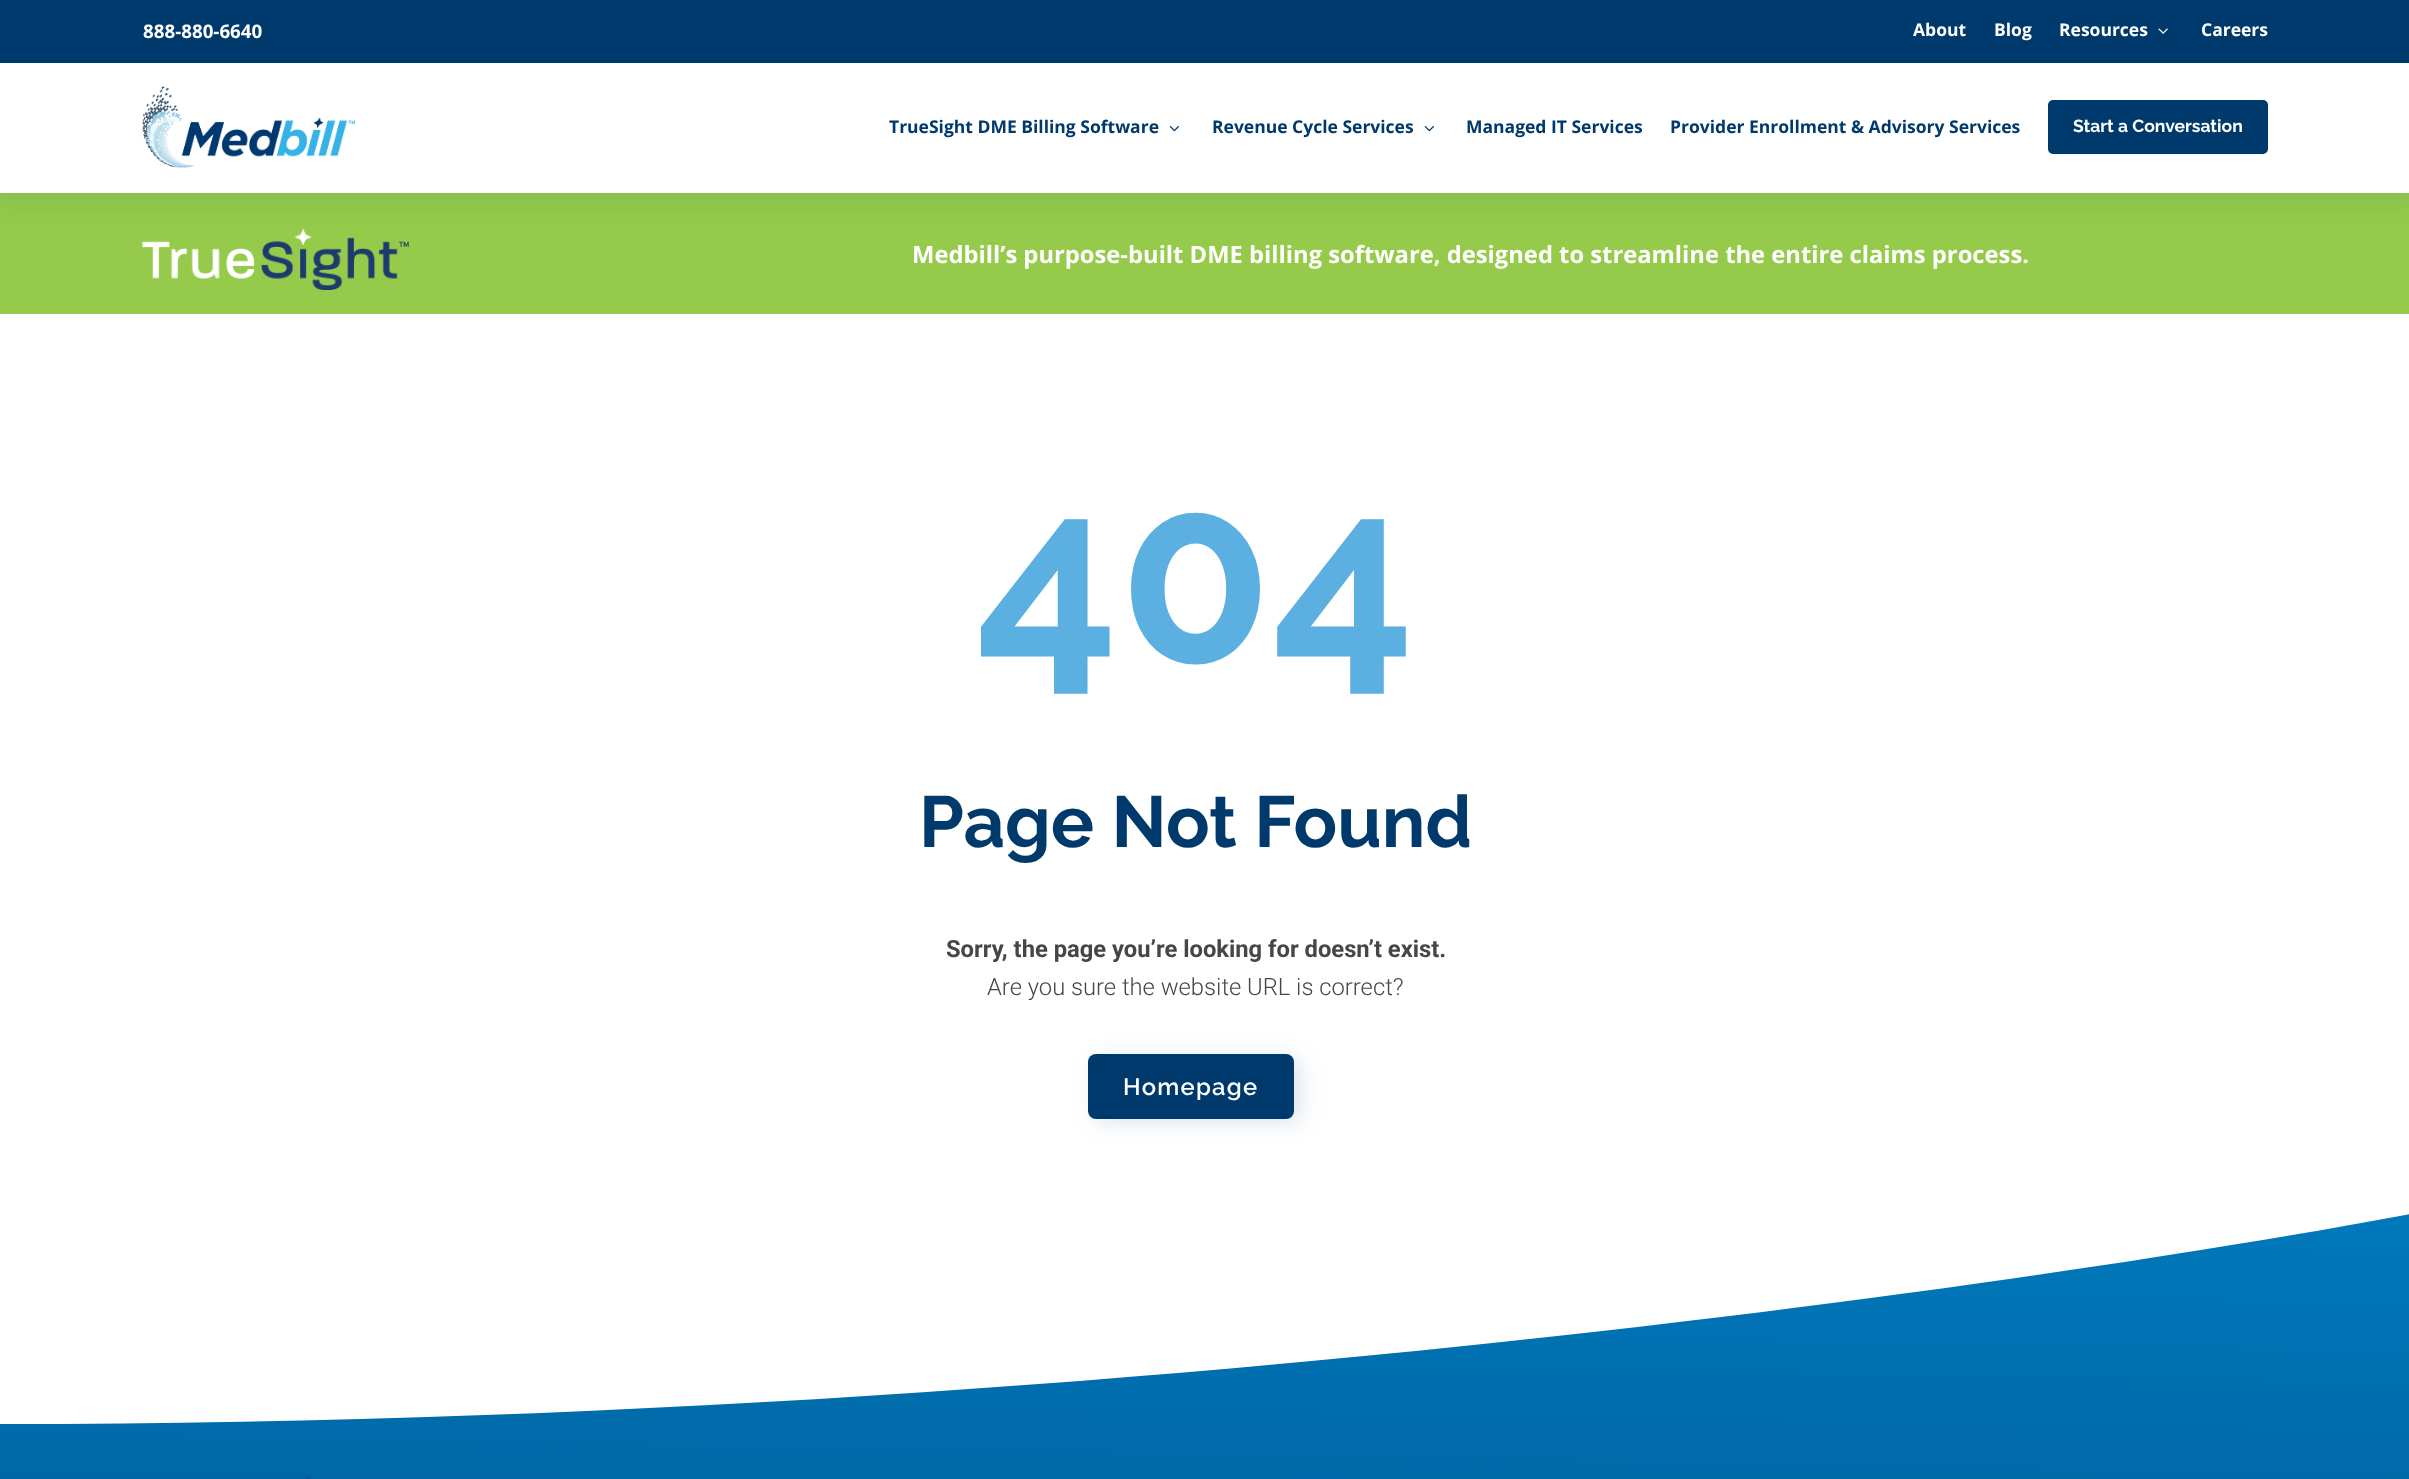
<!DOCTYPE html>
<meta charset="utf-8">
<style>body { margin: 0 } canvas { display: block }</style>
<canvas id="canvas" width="2409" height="1479"></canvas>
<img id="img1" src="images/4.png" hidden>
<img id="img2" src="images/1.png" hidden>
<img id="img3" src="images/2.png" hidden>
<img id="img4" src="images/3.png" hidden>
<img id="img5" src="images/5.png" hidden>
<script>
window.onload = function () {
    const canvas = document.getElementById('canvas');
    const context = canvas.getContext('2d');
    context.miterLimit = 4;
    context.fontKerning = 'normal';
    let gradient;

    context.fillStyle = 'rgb(255, 255, 255)';
    context.fillRect(0, 0, 2409, 1479);
    context.fillStyle = 'rgb(149, 202, 75)';
    context.fillRect(0, 193, 2409, 121);
    context.drawImage(document.getElementById('img1'), 142, 228, 267, 62);
    context.fillStyle = 'rgba(0, 56, 111, 0.07)';
    context.filter = 'blur(11px)';
    context.beginPath();
    context.rect(-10, 55, 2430, 150);
    context.fill();
    context.filter = 'none';
    context.fillStyle = 'rgb(0, 57, 107)';
    context.fillRect(0, 0, 2409, 63);
    context.drawImage(document.getElementById('img2'), 2158, 28, 10, 6);
    context.fillStyle = 'rgb(255, 255, 255)';
    context.fillRect(0, 63, 2409, 130);
    context.drawImage(document.getElementById('img3'), 142, 86, 213, 82);
    context.drawImage(document.getElementById('img4'), 1169, 126, 10, 6);
    context.drawImage(document.getElementById('img4'), 1424, 126, 10, 6);
    context.fillStyle = 'rgb(0, 57, 107)';
    context.beginPath();
    context.roundRect(2048, 100, 220, 54, 5);
    context.fill();
    context.fillStyle = 'rgba(0, 56, 111, 0.13)';
    context.filter = 'blur(11px)';
    context.beginPath();
    context.roundRect(1095, 1058, 206, 65, 8);
    context.fill();
    context.filter = 'none';
    context.fillStyle = 'rgb(0, 57, 107)';
    context.beginPath();
    context.roundRect(1088, 1054, 206, 65, 8);
    context.fill();
    gradient = context.createLinearGradient(1195, 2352, 1215, 1193);
    gradient.addColorStop(0, 'rgb(0, 56, 111)');
    gradient.addColorStop(0.99, 'rgb(0, 120, 186)');
    context.fillStyle = gradient;
    context.fillRect(0, 1214, 2409, 265);
    context.fillStyle = 'rgb(255, 255, 255)';
    context.beginPath();
    context.moveTo(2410, 1214);
    context.bezierCurveTo(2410, 1214, 1331, 1424, 0, 1424);
    context.lineTo(0, 1214);
    context.closePath();
    context.fill();
    context.drawImage(document.getElementById('img5'), 305, 1476, 5, 3);
    context.font = 'bold 18.75px Open Sans';
    context.fillText('888-880-6640', 143, 38);
    context.font = 'bold 17.5px Open Sans';
    context.fillText('About', 1913, 36);
    context.fillText('Blog', 1994, 36);
    context.fillText('Resources', 2059, 36);
    context.fillText('Careers', 2201, 36);
    context.fillStyle = 'rgb(0, 57, 107)';
    context.fillText('TrueSight DME Billing Software', 889, 133);
    context.fillText('Revenue Cycle Services', 1212, 133);
    context.fillText('Managed IT Services', 1466, 133);
    context.fillText('Provider Enrollment & Advisory Services', 1670, 133);
    context.font = 'bold 17.5px Raleway';
    context.fillStyle = 'rgb(255, 255, 255)';
    context.fillText('Start a Conversation', 2073, 132);
    context.font = 'bold 23.75px Open Sans';
    context.fillText('Medbill’s purpose-built DME billing software, designed to streamline the entire claims process.', 912, 263);
    context.font = 'bold 250px Raleway';
    context.fillStyle = 'rgb(91, 176, 225)';
    context.fillText('404', 976, 662);
    context.font = 'bold 72.25px Raleway';
    context.fillStyle = 'rgb(0, 57, 107)';
    context.fillText('Page Not Found', 919, 847);
    context.font = 'bold 23.75px Roboto';
    context.fillStyle = 'rgb(70, 70, 70)';
    context.fillText('Sorry, the page you’re looking for doesn’t exist.', 946, 957);
    context.font = '300 23.75px Roboto';
    context.fillText('Are you sure the website URL is correct?', 987, 995);
    context.letterSpacing = '1.25px';
    context.font = '600 23.75px Raleway';
    context.fillStyle = 'rgb(255, 255, 255)';
    context.fillText('Homepage', 1123, 1095);
};
</script>
